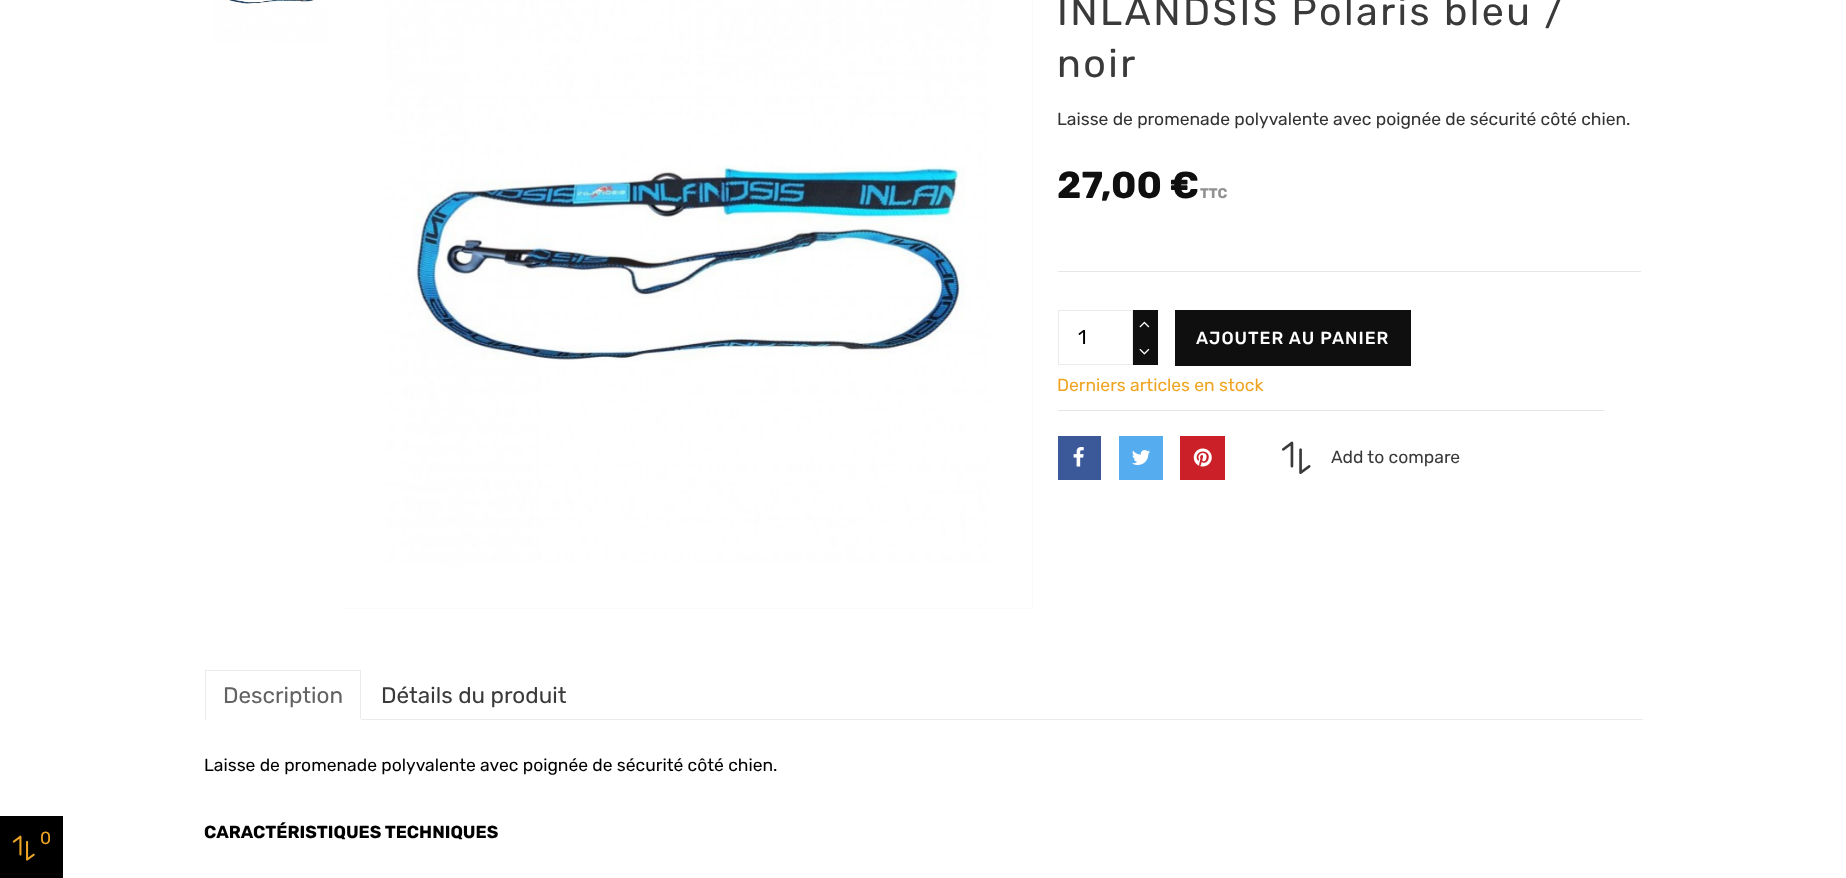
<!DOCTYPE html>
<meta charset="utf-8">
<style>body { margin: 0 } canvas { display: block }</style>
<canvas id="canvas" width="1846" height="878"></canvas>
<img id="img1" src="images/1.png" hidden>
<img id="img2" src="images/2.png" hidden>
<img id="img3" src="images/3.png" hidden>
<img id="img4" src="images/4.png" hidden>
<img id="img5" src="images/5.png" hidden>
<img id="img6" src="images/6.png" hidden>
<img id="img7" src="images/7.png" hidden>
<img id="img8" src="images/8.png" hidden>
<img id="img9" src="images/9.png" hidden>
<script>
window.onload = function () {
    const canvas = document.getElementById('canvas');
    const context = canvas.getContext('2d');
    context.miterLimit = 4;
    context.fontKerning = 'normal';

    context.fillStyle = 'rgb(255, 255, 255)';
    context.fillRect(0, 0, 1846, 878);
    context.fillStyle = 'rgb(0, 0, 0)';
    context.fillRect(0, 816, 63, 62);
    context.drawImage(document.getElementById('img1'), 12, 835, 23, 26);
    context.drawImage(document.getElementById('img2'), 205, 0, 131, 51);
    context.fillStyle = 'rgb(250, 250, 250)';
    context.fillRect(344, 0, 689, 609);
    context.drawImage(document.getElementById('img3'), 344, 0, 688, 608);
    context.fillStyle = 'rgb(230, 230, 230)';
    context.fillRect(1058, 271, 583, 1);
    context.strokeStyle = 'rgb(235, 235, 235)';
    context.strokeRect(1058.5, 310.5, 74, 54);
    context.fillStyle = 'rgb(15, 15, 15)';
    context.fillRect(1133, 310, 25, 55);
    context.drawImage(document.getElementById('img4'), 1139, 321, 11, 7);
    context.drawImage(document.getElementById('img5'), 1139, 348, 11, 7);
    context.fillRect(1175, 310, 236, 56);
    context.fillStyle = 'rgb(230, 230, 230)';
    context.fillRect(1058, 410, 546, 1);
    context.fillStyle = 'rgb(59, 89, 152)';
    context.fillRect(1058, 436, 43, 44);
    context.drawImage(document.getElementById('img6'), 1073, 447, 11, 20);
    context.fillStyle = 'rgb(85, 172, 238)';
    context.fillRect(1119, 436, 44, 44);
    context.drawImage(document.getElementById('img7'), 1132, 450, 18, 15);
    context.fillStyle = 'rgb(203, 32, 39)';
    context.fillRect(1180, 436, 45, 44);
    context.drawImage(document.getElementById('img8'), 1193, 448, 19, 19);
    context.drawImage(document.getElementById('img9'), 1282, 441, 29, 33);
    context.fillStyle = 'rgb(235, 235, 235)';
    context.fillRect(361, 719, 1282, 1);
    context.fillRect(205, 670, 156, 1);
    context.fillRect(360, 670, 1, 50);
    context.fillStyle = 'rgb(255, 255, 255)';
    context.fillRect(360, 719, 1, 1);
    context.fillStyle = 'rgb(235, 235, 235)';
    context.fillRect(205, 670, 1, 50);
    context.font = '17.5px Rubik';
    context.fillStyle = 'rgb(239, 165, 35)';
    context.fillText('0', 40, 844);
    context.letterSpacing = '2.4px';
    context.font = '39.4px Rubik';
    context.fillStyle = 'rgb(58, 58, 58)';
    context.fillText('INLANDSIS Polaris bleu /', 1057, 25);
    context.fillText('noir', 1057, 77);
    context.letterSpacing = '0px';
    context.font = '17.5px Rubik';
    context.fillStyle = 'rgb(51, 51, 51)';
    context.fillText('Laisse de promenade polyvalente avec poignée de sécurité côté chien.', 1057, 125);
    context.font = 'bold 37.5px Rubik';
    context.fillStyle = 'rgb(15, 15, 15)';
    context.fillText('27,00 €', 1057, 198);
    context.font = 'bold 14px Rubik';
    context.fillStyle = 'rgb(145, 145, 145)';
    context.fillText('TTC', 1200, 198);
    context.font = '20px Rubik';
    context.fillStyle = 'rgb(0, 0, 0)';
    context.fillText('1', 1078, 344);
    context.letterSpacing = '1px';
    context.font = '500 17.5px Rubik';
    context.fillStyle = 'rgb(255, 255, 255)';
    context.fillText('AJOUTER AU PANIER', 1196, 344);
    context.letterSpacing = '0px';
    context.font = '17.5px Rubik';
    context.fillStyle = 'rgb(239, 165, 35)';
    context.fillText('Derniers articles en stock', 1057, 391);
    context.fillStyle = 'rgb(58, 58, 58)';
    context.fillText('Add to compare', 1331, 463);
    context.font = '22.5px Rubik';
    context.fillStyle = 'rgb(99, 99, 99)';
    context.fillText('Description', 223, 703);
    context.fillStyle = 'rgb(58, 58, 58)';
    context.fillText('Détails du produit', 381, 703);
    context.font = '17.5px Rubik';
    context.fillStyle = 'rgb(0, 0, 0)';
    context.fillText('Laisse de promenade polyvalente avec poignée de sécurité côté chien.', 204, 771);
    context.font = 'bold 17.5px Rubik';
    context.fillText('CARACTÉRISTIQUES TECHNIQUES', 204, 838);
};
</script>
